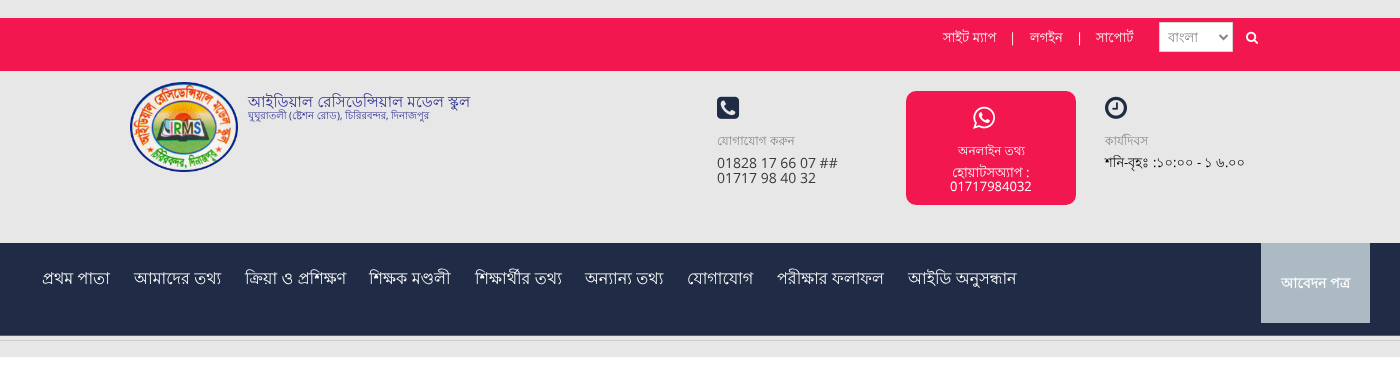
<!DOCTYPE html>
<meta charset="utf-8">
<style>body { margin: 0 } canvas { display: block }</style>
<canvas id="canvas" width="1400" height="378"></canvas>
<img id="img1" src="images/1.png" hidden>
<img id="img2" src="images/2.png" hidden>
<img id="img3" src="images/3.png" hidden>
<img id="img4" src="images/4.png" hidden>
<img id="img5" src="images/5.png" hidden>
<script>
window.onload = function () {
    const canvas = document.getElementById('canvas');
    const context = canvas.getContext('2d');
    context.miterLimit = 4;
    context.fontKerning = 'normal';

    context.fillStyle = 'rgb(231, 231, 231)';
    context.fillRect(0, 0, 1400, 378);
    context.fillStyle = 'rgb(204, 204, 204)';
    context.fillRect(0, 340, 1400, 1);
    context.fillStyle = 'rgb(242, 24, 79)';
    context.fillRect(0, 18, 1400, 53);
    context.fillStyle = 'rgb(255, 255, 255)';
    context.beginPath();
    context.rect(1159.5, 22.5, 73, 29);
    context.fill();
    context.strokeStyle = 'rgb(213, 213, 213)';
    context.stroke();
    context.beginPath();
    context.moveTo(1219.5, 35);
    context.lineTo(1223.5, 39);
    context.lineTo(1227.5, 35);
    context.strokeStyle = 'rgb(133, 133, 133)';
    context.lineWidth = 2;
    context.stroke();
    context.drawImage(document.getElementById('img1'), 1246, 31, 12, 13);
    context.drawImage(document.getElementById('img2'), 130, 82, 108, 90);
    context.drawImage(document.getElementById('img3'), 717, 96, 23, 23);
    context.fillStyle = 'rgb(242, 24, 79)';
    context.beginPath();
    context.roundRect(906, 91, 170, 114, 10);
    context.fill();
    context.drawImage(document.getElementById('img4'), 973, 106, 22, 23);
    context.drawImage(document.getElementById('img5'), 1105, 96, 22, 23);
    context.fillStyle = 'rgb(32, 44, 69)';
    context.fillRect(0, 243, 1400, 92);
    context.fillStyle = 'rgb(242, 24, 79)';
    context.fillRect(0, 335, 1400, 1);
    context.fillStyle = 'rgb(171, 186, 195)';
    context.fillRect(1261, 243, 109, 80);
    context.fillStyle = 'rgb(255, 255, 255)';
    context.fillRect(0, 357, 1400, 21);
    context.font = '13px Lohit Bengali';
    context.fillText('সাইট ম্যাপ', 943, 42);
    context.font = '13px Open Sans';
    context.fillText('|', 1009, 42);
    context.font = '13px Lohit Bengali';
    context.fillText('লগইন', 1030, 42);
    context.font = '13px Open Sans';
    context.fillText('|', 1076, 42);
    context.font = '13px Lohit Bengali';
    context.fillText('সাপোর্ট', 1096, 42);
    context.fillStyle = 'rgb(133, 133, 133)';
    context.fillText('বাংলা', 1168, 42);
    context.font = '15px Lohit Bengali';
    context.fillStyle = 'rgb(45, 48, 146)';
    context.fillText('আইডিয়াল রেসিডেন্সিয়াল মডেল স্কুল', 248, 107);
    context.font = '10px Lohit Bengali';
    context.fillText('ঘুঘুরাতলী', 248, 119);
    context.font = '10px Open Sans';
    context.fillText('(', 289, 119);
    context.font = '10px Lohit Bengali';
    context.fillText('ষ্টেশন রোড', 292, 119);
    context.font = '10px Open Sans';
    context.fillText('),', 337, 119);
    context.font = '10px Lohit Bengali';
    context.fillText('চিরিরবন্দর', 345, 119);
    context.font = '10px Open Sans';
    context.fillText(',', 386, 119);
    context.font = '10px Lohit Bengali';
    context.fillText('দিনাজপুর', 391, 119);
    context.font = '12px Lohit Bengali';
    context.fillStyle = 'rgb(133, 133, 133)';
    context.fillText('যোগাযোগ করুন', 717, 145);
    context.font = '14px Open Sans';
    context.fillStyle = 'rgb(57, 57, 57)';
    context.fillText('01828 17 66 07 ##', 717, 168);
    context.fillText('01717 98 40 32', 717, 183);
    context.font = '12px Lohit Bengali';
    context.fillStyle = 'rgb(255, 255, 255)';
    context.fillText('অনলাইন তথ্য', 958, 155);
    context.font = '13px Lohit Bengali';
    context.fillText('হোয়াটসঅ্যাপ', 952, 177);
    context.font = '13px Open Sans';
    context.fillText(':', 1026, 177);
    context.fillText('01717984032', 950, 191);
    context.font = '12px Lohit Bengali';
    context.fillStyle = 'rgb(133, 133, 133)';
    context.fillText('কার্যদিবস', 1105, 145);
    context.font = '13px Lohit Bengali';
    context.fillStyle = 'rgb(0, 0, 0)';
    context.fillText('শনি', 1105, 167);
    context.font = '13px Open Sans';
    context.fillText(':', 1153, 167);
    context.font = '13px Lohit Bengali';
    context.fillText('১০ ০০', 1156, 167);
    context.fillText('১ ৬ ০০', 1204, 167);
    context.font = '13px Open Sans';
    context.fillText('-', 1124, 167);
    context.font = '13px Lohit Bengali';
    context.fillText('বৃহঃ', 1128, 167);
    context.font = '13px Open Sans';
    context.fillText(':', 1173, 167);
    context.fillText('-', 1197, 167);
    context.fillText('.', 1225, 167);
    context.font = '16px Lohit Bengali';
    context.fillStyle = 'rgb(255, 255, 255)';
    context.fillText('প্রথম পাতা', 42, 284);
    context.fillText('আমাদের তথ্য', 134, 284);
    context.fillText('ক্রিয়া ও প্রশিক্ষণ', 245, 284);
    context.fillText('শিক্ষক মণ্ডলী', 369, 284);
    context.fillText('শিক্ষার্থীর তথ্য', 475, 284);
    context.fillText('অন্যান্য তথ্য', 585, 284);
    context.fillText('যোগাযোগ', 687, 284);
    context.fillText('পরীক্ষার ফলাফল', 777, 284);
    context.fillText('আইডি অনুসন্ধান', 908, 284);
    context.font = 'bold 14px Lohit Bengali';
    context.fillText('আবেদন পত্র', 1281, 288);
};
</script>
